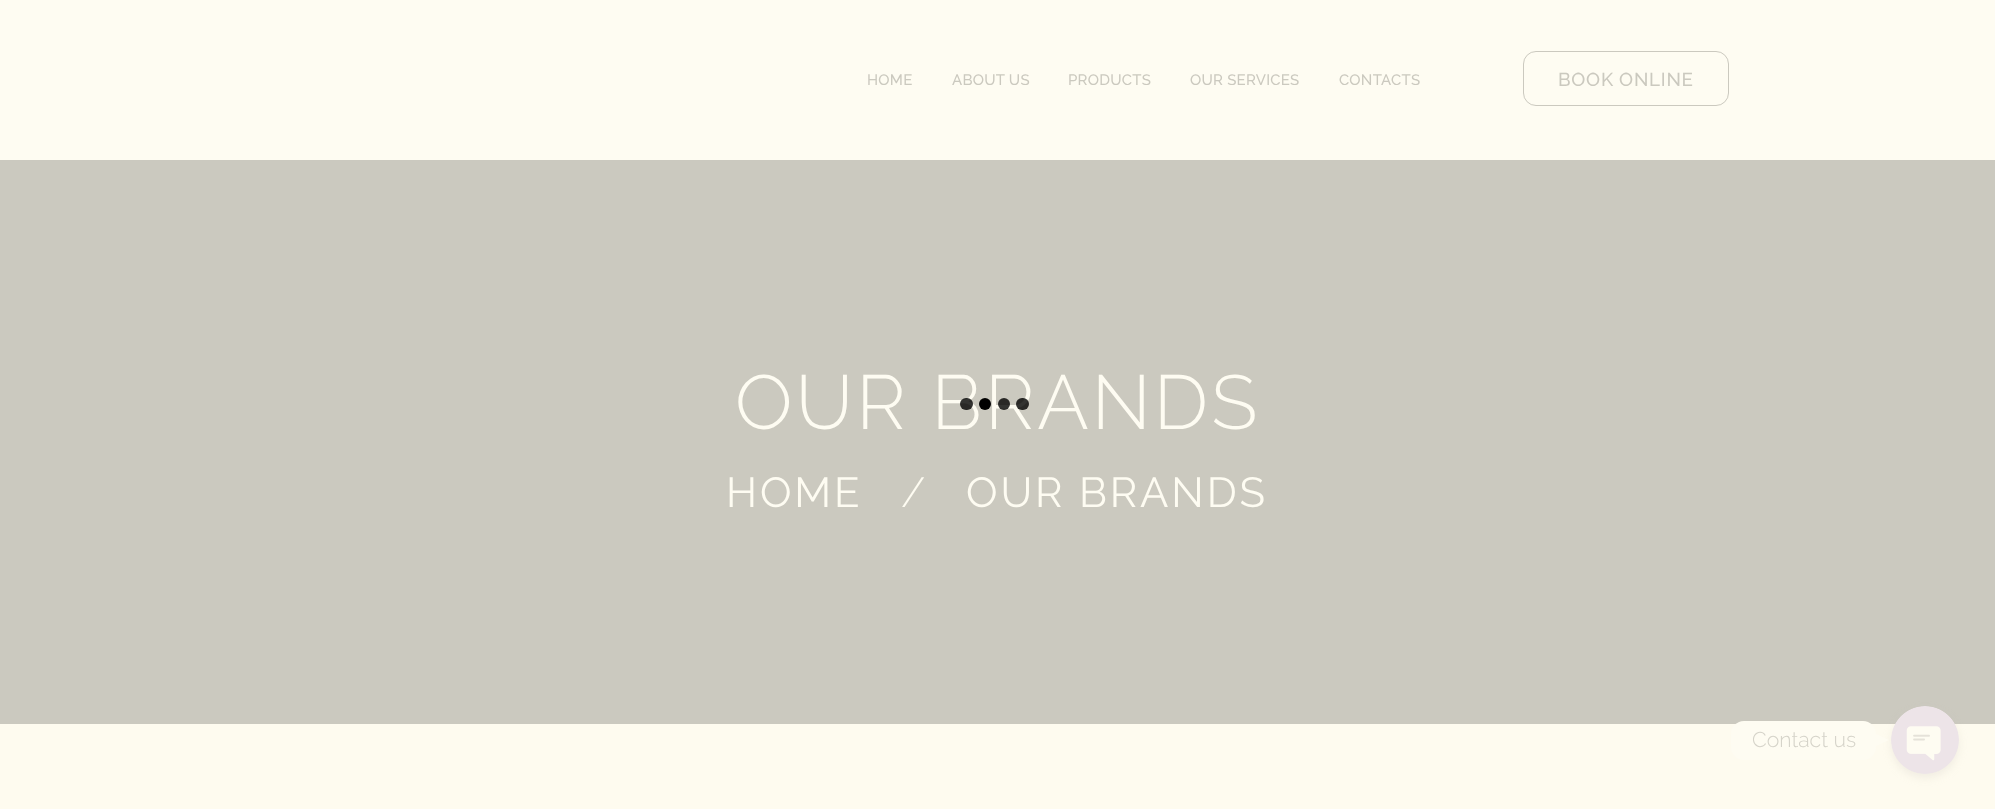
<!DOCTYPE html>
<meta charset="utf-8">
<style>body { margin: 0 } canvas { display: block }</style>
<canvas id="canvas" width="1995" height="809"></canvas>
<img id="img1" src="images/1.png" hidden>
<script>
window.onload = function () {
    const canvas = document.getElementById('canvas');
    const context = canvas.getContext('2d');
    context.miterLimit = 4;
    context.fontKerning = 'normal';

    context.fillStyle = 'rgb(254, 251, 239)';
    context.fillRect(0, 0, 1995, 809);
    context.fillStyle = 'rgb(254, 252, 242)';
    context.fillRect(0, 0, 1995, 160);
    context.beginPath();
    context.roundRect(1523.5, 51.5, 205, 54, 12.5);
    context.strokeStyle = 'rgb(203, 201, 191)';
    context.stroke();
    context.fillStyle = 'rgb(203, 201, 191)';
    context.fillRect(0, 160, 1995, 564);
    context.fillStyle = 'rgb(254, 252, 242)';
    context.beginPath();
    context.roundRect(1731, 721, 145, 39, 13);
    context.fill();
    context.fillStyle = 'rgba(203, 201, 191, 0.25)';
    context.filter = 'blur(4px)';
    context.beginPath();
    context.roundRect(1891, 710, 68, 68, 34);
    context.fill();
    context.filter = 'none';
    context.drawImage(document.getElementById('img1'), 1891, 706, 68, 68);
    context.fillStyle = 'rgb(254, 252, 242)';
    context.beginPath();
    context.moveTo(1876, 746);
    context.lineTo(1876, 734);
    context.lineTo(1889, 740);
    context.closePath();
    context.fill();
    context.letterSpacing = '0.25px';
    context.font = '500 15px Raleway';
    context.fillStyle = 'rgb(203, 201, 191)';
    context.fillText('HOME', 867, 85);
    context.fillText('ABOUT US', 952, 85);
    context.fillText('PRODUCTS', 1068, 85);
    context.fillText('OUR SERVICES', 1190, 85);
    context.fillText('CONTACTS', 1339, 85);
    context.letterSpacing = '0.75px';
    context.font = '500 18.75px Raleway';
    context.fillText('BOOK ONLINE', 1558, 86);
    context.letterSpacing = '3.1px';
    context.font = '300 76.25px Raleway';
    context.fillStyle = 'rgb(254, 252, 242)';
    context.fillText('OUR BRANDS', 735, 429);
    context.letterSpacing = '2.9px';
    context.font = '42px Raleway';
    context.fillText('HOME', 726, 507);
    context.font = '300 42px Raleway';
    context.fillText('/', 901, 507);
    context.font = '42px Raleway';
    context.fillText('OUR BRANDS', 966, 507);
    context.fillStyle = 'rgba(0, 0, 0, 0.8)';
    context.beginPath();
    context.roundRect(960, 398, 13, 12, 6);
    context.fill();
    context.fillStyle = 'rgb(0, 0, 0)';
    context.beginPath();
    context.arc(985, 404, 6, 0, 2 * Math.PI);
    context.fill();
    context.fillStyle = 'rgba(0, 0, 0, 0.8)';
    context.beginPath();
    context.arc(1004, 404, 6, 0, 2 * Math.PI);
    context.fill();
    context.beginPath();
    context.roundRect(1016, 398, 13, 12, 6);
    context.fill();
    context.letterSpacing = '0px';
    context.font = '300 21.25px Raleway';
    context.fillStyle = 'rgb(213, 211, 201)';
    context.fillText('Contact us', 1752, 747);
};
</script>
